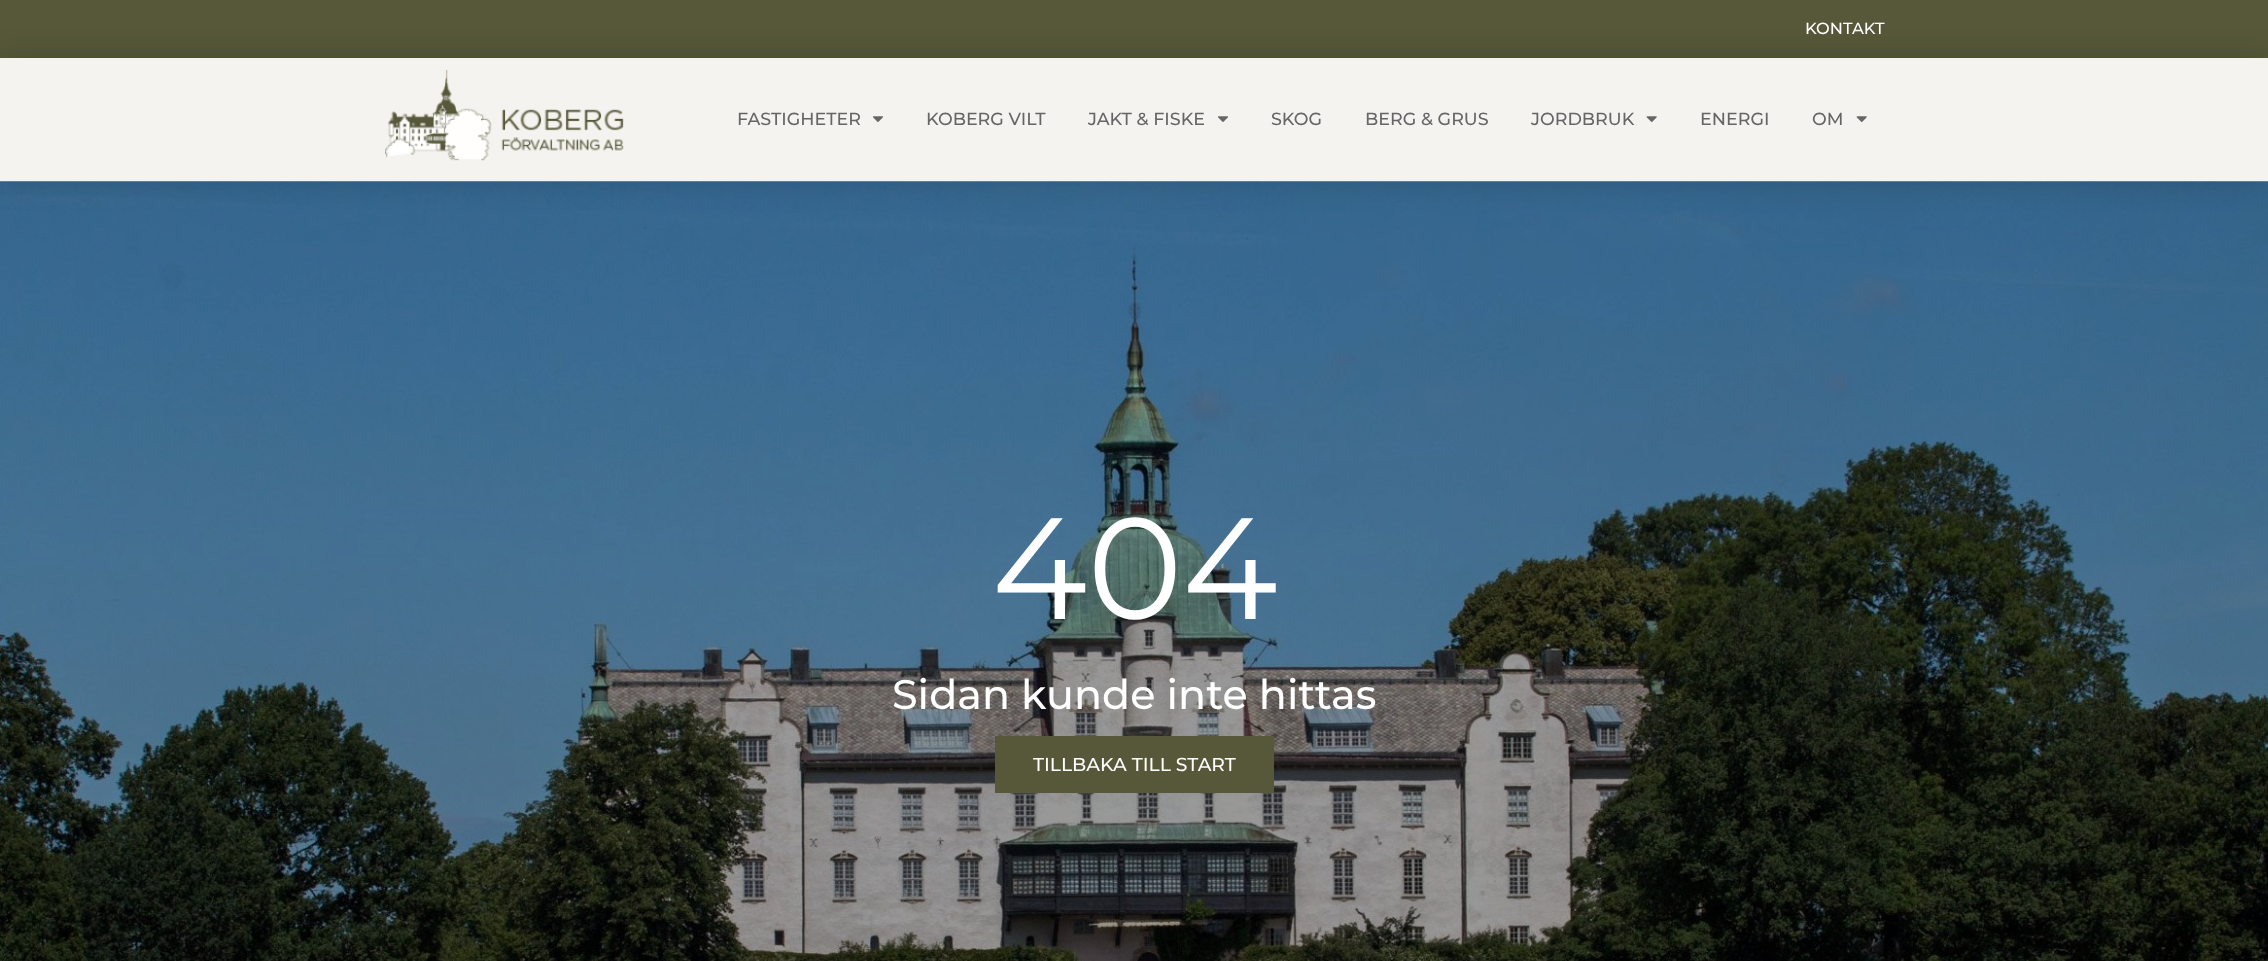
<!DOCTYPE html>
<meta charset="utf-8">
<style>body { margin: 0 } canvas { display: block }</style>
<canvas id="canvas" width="2268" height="961"></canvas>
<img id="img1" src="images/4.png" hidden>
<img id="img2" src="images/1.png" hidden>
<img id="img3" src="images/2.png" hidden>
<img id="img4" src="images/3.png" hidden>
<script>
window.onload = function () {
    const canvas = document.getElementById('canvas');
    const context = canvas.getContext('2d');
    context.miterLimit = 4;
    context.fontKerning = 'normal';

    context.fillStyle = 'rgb(255, 255, 255)';
    context.fillRect(0, 0, 2268, 961);
    context.fillStyle = 'rgb(86, 88, 57)';
    context.fillRect(0, 0, 2268, 58);
    context.drawImage(document.getElementById('img1'), 0, 181, 2268, 780);
    context.fillStyle = 'rgba(0, 0, 0, 0.15)';
    context.filter = 'blur(15px)';
    context.beginPath();
    context.rect(0, 58, 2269, 123);
    context.fill();
    context.filter = 'none';
    context.fillStyle = 'rgb(244, 243, 239)';
    context.fillRect(0, 58, 2268, 123);
    context.drawImage(document.getElementById('img2'), 385, 70, 239, 91);
    context.drawImage(document.getElementById('img3'), 873, 116, 10, 6);
    context.drawImage(document.getElementById('img3'), 1218, 116, 10, 6);
    context.drawImage(document.getElementById('img4'), 1646, 116, 11, 6);
    context.drawImage(document.getElementById('img4'), 1856, 116, 11, 6);
    context.fillStyle = 'rgb(86, 88, 57)';
    context.fillRect(995, 736, 279, 57);
    context.font = '500 16.25px Montserrat';
    context.fillStyle = 'rgb(255, 255, 255)';
    context.fillText('KONTAKT', 1805, 34);
    context.font = '500 17.5px Montserrat';
    context.fillStyle = 'rgb(102, 102, 102)';
    context.fillText('FASTIGHETER', 737, 125);
    context.fillText('KOBERG VILT', 926, 125);
    context.fillText('JAKT & FISKE', 1088, 125);
    context.fillText('SKOG', 1271, 125);
    context.fillText('BERG & GRUS', 1365, 125);
    context.fillText('JORDBRUK', 1531, 125);
    context.fillText('ENERGI', 1700, 125);
    context.fillText('OM', 1812, 125);
    context.font = '144px Montserrat';
    context.fillStyle = 'rgb(255, 255, 255)';
    context.fillText('404', 992, 619);
    context.font = '500 41.25px Montserrat';
    context.fillText('Sidan kunde inte hittas', 892, 709);
    context.font = '500 18.75px Montserrat';
    context.fillText('TILLBAKA TILL START', 1033, 771);
};
</script>
